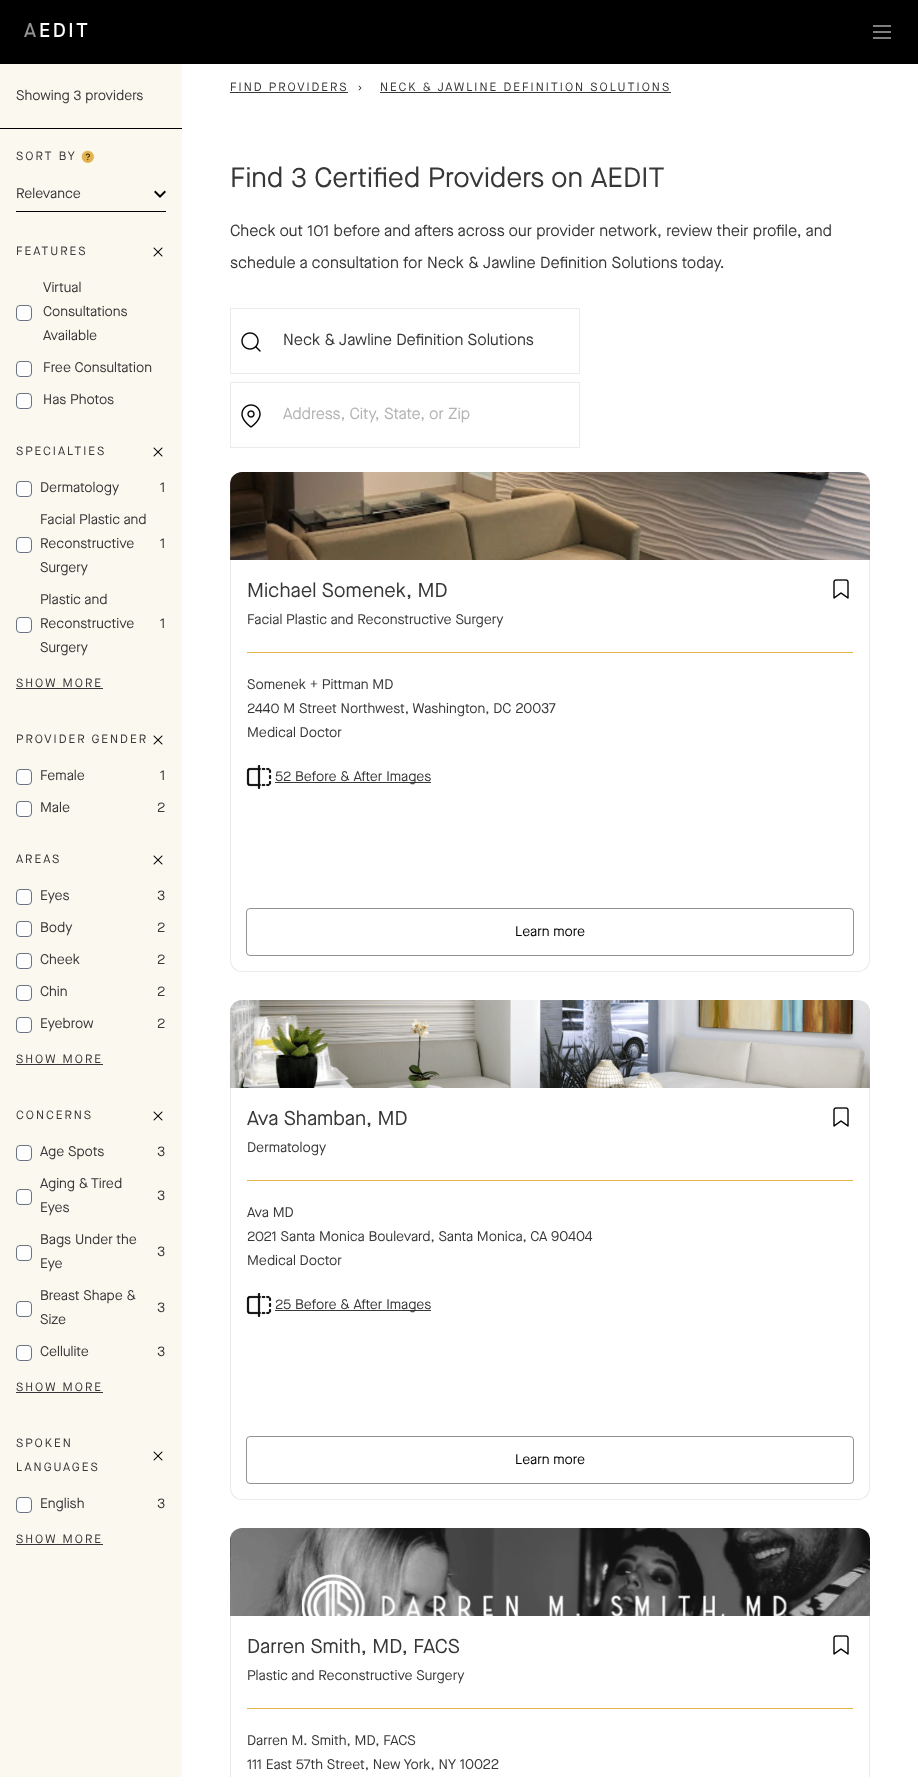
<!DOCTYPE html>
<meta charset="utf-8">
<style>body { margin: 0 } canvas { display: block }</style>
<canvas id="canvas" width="918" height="1777"></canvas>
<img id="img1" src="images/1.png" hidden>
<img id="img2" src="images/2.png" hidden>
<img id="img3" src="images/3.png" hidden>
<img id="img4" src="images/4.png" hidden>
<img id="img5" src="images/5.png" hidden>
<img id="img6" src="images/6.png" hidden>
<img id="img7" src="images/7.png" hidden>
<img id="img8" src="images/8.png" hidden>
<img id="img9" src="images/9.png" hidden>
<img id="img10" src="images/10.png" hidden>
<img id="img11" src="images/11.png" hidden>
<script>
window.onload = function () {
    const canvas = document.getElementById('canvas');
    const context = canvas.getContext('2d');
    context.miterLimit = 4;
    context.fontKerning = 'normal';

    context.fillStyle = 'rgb(255, 255, 255)';
    context.fillRect(0, 0, 918, 1777);
    context.fillStyle = 'rgb(0, 0, 0)';
    context.fillRect(0, 0, 918, 64);
    context.beginPath();
    context.moveTo(873, 32);
    context.lineTo(891, 32);
    context.moveTo(873, 26);
    context.lineTo(891, 26);
    context.moveTo(873, 38);
    context.lineTo(891, 38);
    context.strokeStyle = 'rgb(255, 255, 255)';
    context.stroke();
    context.fillStyle = 'rgb(251, 248, 240)';
    context.fillRect(0, 64, 182, 1713);
    context.fillStyle = 'rgb(0, 0, 0)';
    context.fillRect(0, 128, 182, 1);
    context.drawImage(document.getElementById('img1'), 81, 150, 13, 13);
    context.drawImage(document.getElementById('img2'), 154, 190, 12, 8);
    context.fillRect(16, 211, 150, 1);
    context.drawImage(document.getElementById('img3'), 153, 247, 10, 10);
    context.fillStyle = 'rgb(255, 255, 255)';
    context.beginPath();
    context.roundRect(16.5, 305.5, 15, 15, 3.5);
    context.fill();
    context.strokeStyle = 'rgb(107, 114, 128)';
    context.stroke();
    context.beginPath();
    context.roundRect(16.5, 361.5, 15, 15, 3.5);
    context.fill();
    context.stroke();
    context.beginPath();
    context.roundRect(16.5, 393.5, 15, 15, 3.5);
    context.fill();
    context.stroke();
    context.drawImage(document.getElementById('img3'), 153, 447, 10, 10);
    context.beginPath();
    context.roundRect(16.5, 481.5, 15, 15, 3.5);
    context.fill();
    context.stroke();
    context.beginPath();
    context.roundRect(16.5, 537.5, 15, 15, 3.5);
    context.fill();
    context.stroke();
    context.beginPath();
    context.roundRect(16.5, 617.5, 15, 15, 3.5);
    context.fill();
    context.stroke();
    context.fillStyle = 'rgb(55, 55, 55)';
    context.fillRect(16, 688, 87, 1);
    context.drawImage(document.getElementById('img3'), 153, 735, 10, 10);
    context.fillStyle = 'rgb(255, 255, 255)';
    context.beginPath();
    context.roundRect(16.5, 769.5, 15, 15, 3.5);
    context.fill();
    context.stroke();
    context.beginPath();
    context.roundRect(16.5, 801.5, 15, 15, 3.5);
    context.fill();
    context.stroke();
    context.drawImage(document.getElementById('img3'), 153, 855, 10, 10);
    context.beginPath();
    context.roundRect(16.5, 889.5, 15, 15, 3.5);
    context.fill();
    context.stroke();
    context.beginPath();
    context.roundRect(16.5, 921.5, 15, 15, 3.5);
    context.fill();
    context.stroke();
    context.beginPath();
    context.roundRect(16.5, 953.5, 15, 15, 3.5);
    context.fill();
    context.stroke();
    context.beginPath();
    context.roundRect(16.5, 985.5, 15, 15, 3.5);
    context.fill();
    context.stroke();
    context.beginPath();
    context.roundRect(16.5, 1017.5, 15, 15, 3.5);
    context.fill();
    context.stroke();
    context.fillStyle = 'rgb(55, 55, 55)';
    context.fillRect(16, 1064, 87, 1);
    context.drawImage(document.getElementById('img3'), 153, 1111, 10, 10);
    context.fillStyle = 'rgb(255, 255, 255)';
    context.beginPath();
    context.roundRect(16.5, 1145.5, 15, 15, 3.5);
    context.fill();
    context.stroke();
    context.beginPath();
    context.roundRect(16.5, 1189.5, 15, 15, 3.5);
    context.fill();
    context.stroke();
    context.beginPath();
    context.roundRect(16.5, 1245.5, 15, 15, 3.5);
    context.fill();
    context.stroke();
    context.beginPath();
    context.roundRect(16.5, 1301.5, 15, 15, 3.5);
    context.fill();
    context.stroke();
    context.beginPath();
    context.roundRect(16.5, 1345.5, 15, 15, 3.5);
    context.fill();
    context.stroke();
    context.fillStyle = 'rgb(55, 55, 55)';
    context.fillRect(16, 1392, 87, 1);
    context.drawImage(document.getElementById('img3'), 153, 1451, 10, 10);
    context.fillStyle = 'rgb(255, 255, 255)';
    context.beginPath();
    context.roundRect(16.5, 1497.5, 15, 15, 3.5);
    context.fill();
    context.stroke();
    context.fillStyle = 'rgb(55, 55, 55)';
    context.fillRect(16, 1544, 87, 1);
    context.fillRect(230, 92, 118, 1);
    context.drawImage(document.getElementById('img4'), 358, 85, 4, 6);
    context.fillRect(380, 92, 291, 1);
    context.strokeStyle = 'rgb(235, 235, 235)';
    context.strokeRect(230.5, 308.5, 349, 65);
    context.drawImage(document.getElementById('img5'), 241, 332, 20, 20);
    context.strokeRect(230.5, 382.5, 349, 65);
    context.drawImage(document.getElementById('img6'), 241, 404, 20, 24);
    context.drawImage(document.getElementById('img7'), 230, 472, 640, 88);
    context.fillStyle = 'rgb(235, 235, 235)';
    context.beginPath();
    context.moveTo(231, 560);
    context.lineTo(230, 560);
    context.lineTo(230, 960);
    context.bezierCurveTo(230, 967, 235, 972, 242, 972);
    context.lineTo(858, 972);
    context.bezierCurveTo(865, 972, 870, 967, 870, 960);
    context.lineTo(870, 560);
    context.lineTo(869, 560);
    context.lineTo(869, 960);
    context.bezierCurveTo(869, 966, 864, 971, 858, 971);
    context.lineTo(242, 971);
    context.bezierCurveTo(236, 971, 231, 966, 231, 960);
    context.closePath();
    context.fill();
    context.fillStyle = 'rgb(227, 178, 77)';
    context.fillRect(247, 652, 606, 1);
    context.drawImage(document.getElementById('img8'), 833, 579, 16, 20);
    context.drawImage(document.getElementById('img9'), 246, 765, 26, 24);
    context.fillStyle = 'rgb(55, 55, 55)';
    context.fillRect(275, 782, 156, 1);
    context.beginPath();
    context.roundRect(246.5, 908.5, 607, 47, 3.5);
    context.strokeStyle = 'rgb(147, 147, 147)';
    context.stroke();
    context.drawImage(document.getElementById('img10'), 230, 1000, 640, 88);
    context.fillStyle = 'rgb(235, 235, 235)';
    context.beginPath();
    context.moveTo(231, 1088);
    context.lineTo(230, 1088);
    context.lineTo(230, 1488);
    context.bezierCurveTo(230, 1495, 235, 1500, 242, 1500);
    context.lineTo(858, 1500);
    context.bezierCurveTo(865, 1500, 870, 1495, 870, 1488);
    context.lineTo(870, 1088);
    context.lineTo(869, 1088);
    context.lineTo(869, 1488);
    context.bezierCurveTo(869, 1494, 864, 1499, 858, 1499);
    context.lineTo(242, 1499);
    context.bezierCurveTo(236, 1499, 231, 1494, 231, 1488);
    context.closePath();
    context.fill();
    context.fillStyle = 'rgb(227, 178, 77)';
    context.fillRect(247, 1180, 606, 1);
    context.drawImage(document.getElementById('img8'), 833, 1107, 16, 20);
    context.drawImage(document.getElementById('img9'), 246, 1293, 26, 24);
    context.fillStyle = 'rgb(55, 55, 55)';
    context.fillRect(275, 1310, 156, 1);
    context.beginPath();
    context.roundRect(246.5, 1436.5, 607, 47, 3.5);
    context.stroke();
    context.drawImage(document.getElementById('img11'), 230, 1528, 640, 88);
    context.fillStyle = 'rgb(235, 235, 235)';
    context.beginPath();
    context.moveTo(231, 1616);
    context.lineTo(230, 1616);
    context.lineTo(230, 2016);
    context.bezierCurveTo(230, 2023, 235, 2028, 242, 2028);
    context.lineTo(858, 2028);
    context.bezierCurveTo(865, 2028, 870, 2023, 870, 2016);
    context.lineTo(870, 1616);
    context.lineTo(869, 1616);
    context.lineTo(869, 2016);
    context.bezierCurveTo(869, 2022, 864, 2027, 858, 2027);
    context.lineTo(242, 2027);
    context.bezierCurveTo(236, 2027, 231, 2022, 231, 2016);
    context.closePath();
    context.fill();
    context.fillStyle = 'rgb(227, 178, 77)';
    context.fillRect(247, 1708, 606, 1);
    context.drawImage(document.getElementById('img8'), 833, 1635, 16, 20);
    context.letterSpacing = '2.5px';
    context.font = '500 20px Maison Neue';
    context.fillStyle = 'rgb(147, 147, 147)';
    context.fillText('A', 24, 37);
    context.fillStyle = 'rgb(255, 255, 255)';
    context.fillText('EDIT', 39, 37);
    context.letterSpacing = '0px';
    context.font = '14px Maison Neue';
    context.fillStyle = 'rgb(55, 55, 55)';
    context.fillText('Showing 3 providers', 16, 100);
    context.letterSpacing = '2px';
    context.font = '12px Maison Neue';
    context.fillText('SORT BY', 16, 160);
    context.letterSpacing = '0px';
    context.font = '14px Maison Neue';
    context.fillText('Relevance', 16, 198);
    context.letterSpacing = '2px';
    context.font = '12px Maison Neue';
    context.fillText('FEATURES', 16, 255);
    context.letterSpacing = '0px';
    context.font = '14px Maison Neue';
    context.fillText('Virtual', 43, 292);
    context.fillText('Consultations', 43, 316);
    context.fillText('Available', 43, 340);
    context.fillText('Free Consultation', 43, 372);
    context.fillText('Has Photos', 43, 404);
    context.letterSpacing = '2px';
    context.font = '12px Maison Neue';
    context.fillText('SPECIALTIES', 16, 455);
    context.letterSpacing = '0px';
    context.font = '14px Maison Neue';
    context.fillText('Dermatology', 40, 492);
    context.fillText('1', 160, 492);
    context.fillText('Facial Plastic and', 40, 524);
    context.fillText('Reconstructive', 40, 548);
    context.fillText('Surgery', 40, 572);
    context.fillText('1', 160, 548);
    context.fillText('Plastic and', 40, 604);
    context.fillText('Reconstructive', 40, 628);
    context.fillText('Surgery', 40, 652);
    context.fillText('1', 160, 628);
    context.letterSpacing = '2px';
    context.font = '12px Maison Neue';
    context.fillText('SHOW MORE', 16, 687);
    context.fillText('PROVIDER GENDER', 16, 743);
    context.letterSpacing = '0px';
    context.font = '14px Maison Neue';
    context.fillText('Female', 40, 780);
    context.fillText('1', 160, 780);
    context.fillText('Male', 40, 812);
    context.fillText('2', 157, 812);
    context.letterSpacing = '2px';
    context.font = '12px Maison Neue';
    context.fillText('AREAS', 16, 863);
    context.letterSpacing = '0px';
    context.font = '14px Maison Neue';
    context.fillText('Eyes', 40, 900);
    context.fillText('3', 157, 900);
    context.fillText('Body', 40, 932);
    context.fillText('2', 157, 932);
    context.fillText('Cheek', 40, 964);
    context.fillText('2', 157, 964);
    context.fillText('Chin', 40, 996);
    context.fillText('2', 157, 996);
    context.fillText('Eyebrow', 40, 1028);
    context.fillText('2', 157, 1028);
    context.letterSpacing = '2px';
    context.font = '12px Maison Neue';
    context.fillText('SHOW MORE', 16, 1063);
    context.fillText('CONCERNS', 16, 1119);
    context.letterSpacing = '0px';
    context.font = '14px Maison Neue';
    context.fillText('Age Spots', 40, 1156);
    context.fillText('3', 157, 1156);
    context.fillText('Aging & Tired', 40, 1188);
    context.fillText('Eyes', 40, 1212);
    context.fillText('3', 157, 1200);
    context.fillText('Bags Under the', 40, 1244);
    context.fillText('Eye', 40, 1268);
    context.fillText('3', 157, 1256);
    context.fillText('Breast Shape &', 40, 1300);
    context.fillText('Size', 40, 1324);
    context.fillText('3', 157, 1312);
    context.fillText('Cellulite', 40, 1356);
    context.fillText('3', 157, 1356);
    context.letterSpacing = '2px';
    context.font = '12px Maison Neue';
    context.fillText('SHOW MORE', 16, 1391);
    context.fillText('SPOKEN', 16, 1447);
    context.fillText('LANGUAGES', 16, 1471);
    context.letterSpacing = '0px';
    context.font = '14px Maison Neue';
    context.fillText('English', 40, 1508);
    context.fillText('3', 157, 1508);
    context.letterSpacing = '2px';
    context.font = '12px Maison Neue';
    context.fillText('SHOW MORE', 16, 1543);
    context.fillText('FIND PROVIDERS', 230, 91);
    context.fillText('NECK & JAWLINE DEFINITION SOLUTIONS', 380, 91);
    context.letterSpacing = '0px';
    context.font = '28px Maison Neue';
    context.fillText('Find 3 Certified Providers on AEDIT', 230, 187);
    context.font = '16px Maison Neue';
    context.fillText('Check out 101 before and afters across our provider network, review their profile, and', 230, 236);
    context.fillText('schedule a consultation for Neck & Jawline Definition Solutions today.', 230, 268);
    context.fillText('Neck & Jawline Definition Solutions', 283, 345);
    context.fillStyle = 'rgb(179, 179, 179)';
    context.fillText('Address, City, State, or Zip', 283, 419);
    context.font = '20px Maison Neue';
    context.fillStyle = 'rgb(55, 55, 55)';
    context.fillText('Michael Somenek, MD', 247, 597);
    context.font = '14px Maison Neue';
    context.fillText('Facial Plastic and Reconstructive Surgery', 247, 624);
    context.fillText('Somenek + Pittman MD', 247, 689);
    context.fillText('2440 M Street Northwest, Washington, DC 20037', 247, 713);
    context.fillText('Medical Doctor', 247, 737);
    context.fillText('52 Before & After Images', 275, 781);
    context.fillStyle = 'rgb(0, 0, 0)';
    context.fillText('Learn more', 515, 936);
    context.font = '20px Maison Neue';
    context.fillStyle = 'rgb(55, 55, 55)';
    context.fillText('Ava Shamban, MD', 247, 1125);
    context.font = '14px Maison Neue';
    context.fillText('Dermatology', 247, 1152);
    context.fillText('Ava MD', 247, 1217);
    context.fillText('2021 Santa Monica Boulevard, Santa Monica, CA 90404', 247, 1241);
    context.fillText('Medical Doctor', 247, 1265);
    context.fillText('25 Before & After Images', 275, 1309);
    context.fillStyle = 'rgb(0, 0, 0)';
    context.fillText('Learn more', 515, 1464);
    context.font = '20px Maison Neue';
    context.fillStyle = 'rgb(55, 55, 55)';
    context.fillText('Darren Smith, MD, FACS', 247, 1653);
    context.font = '14px Maison Neue';
    context.fillText('Plastic and Reconstructive Surgery', 247, 1680);
    context.fillText('Darren M. Smith, MD, FACS', 247, 1745);
    context.fillText('111 East 57th Street, New York, NY 10022', 247, 1769);
};
</script>
